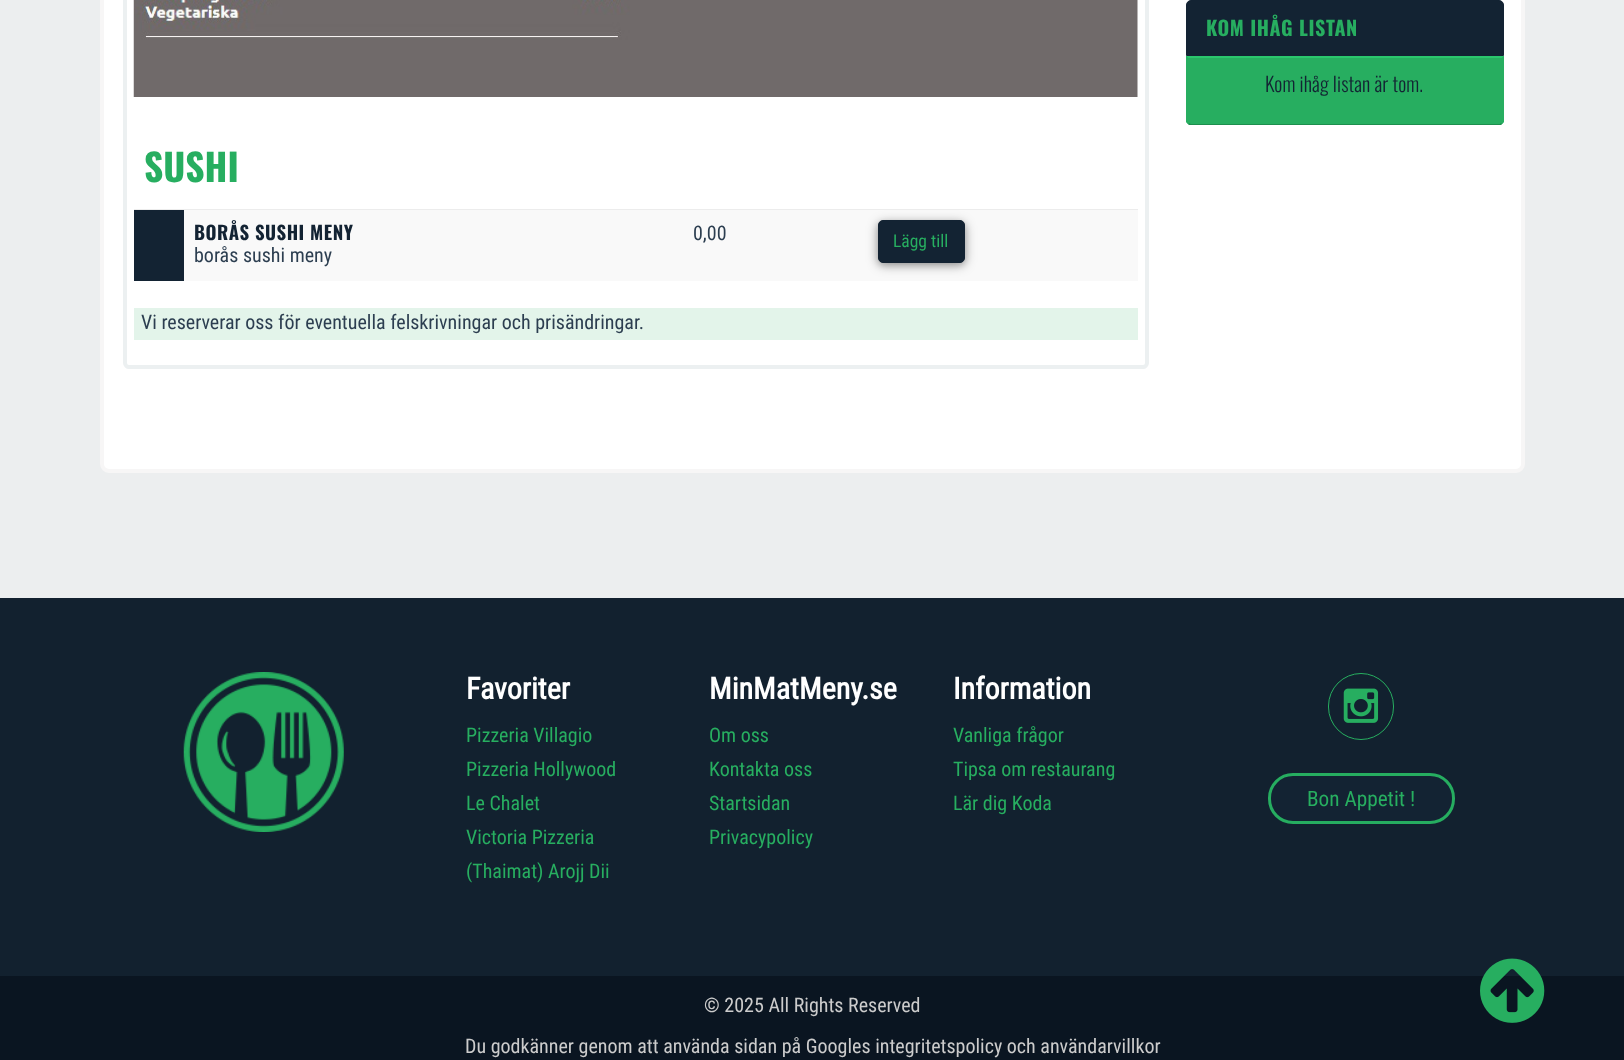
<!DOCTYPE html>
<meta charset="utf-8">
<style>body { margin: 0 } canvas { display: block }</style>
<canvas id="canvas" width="1624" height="1060"></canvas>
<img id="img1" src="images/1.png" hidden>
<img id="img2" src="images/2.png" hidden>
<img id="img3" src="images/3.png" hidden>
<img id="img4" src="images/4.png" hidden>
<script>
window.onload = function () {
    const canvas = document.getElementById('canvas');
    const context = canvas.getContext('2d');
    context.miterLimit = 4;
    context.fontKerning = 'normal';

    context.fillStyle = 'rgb(236, 238, 239)';
    context.fillRect(0, 0, 1624, 1060);
    context.fillStyle = 'rgb(255, 255, 255)';
    context.beginPath();
    context.roundRect(102, -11, 1421, 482, 7);
    context.fill();
    context.strokeStyle = 'rgb(247, 246, 246)';
    context.lineWidth = 4;
    context.stroke();
    context.fillStyle = 'rgb(19, 35, 51)';
    context.beginPath();
    context.roundRect(1186.5, 0.5, 317, 55, [4.5, 4.5, 0, 0]);
    context.fill();
    context.strokeStyle = 'rgb(19, 35, 51)';
    context.lineWidth = 1;
    context.stroke();
    context.fillStyle = 'rgb(39, 174, 96)';
    context.beginPath();
    context.roundRect(1186, 56, 318, 69, [0, 0, 5, 5]);
    context.fill();
    context.fillStyle = 'rgb(43, 199, 109)';
    context.beginPath();
    context.moveTo(1188, 58);
    context.lineTo(1502, 58);
    context.lineTo(1504, 56);
    context.lineTo(1186, 56);
    context.closePath();
    context.fill();
    context.fillStyle = 'rgb(39, 174, 96)';
    context.beginPath();
    context.moveTo(1504, 56);
    context.lineTo(1504, 122);
    context.lineTo(1502, 124);
    context.lineTo(1501, 123);
    context.lineTo(1502, 120);
    context.lineTo(1502, 58);
    context.closePath();
    context.fill();
    context.fillStyle = 'rgb(29, 142, 77)';
    context.beginPath();
    context.moveTo(1191, 125);
    context.lineTo(1499, 125);
    context.bezierCurveTo(1500, 125, 1502, 125, 1502, 124);
    context.lineTo(1501, 123);
    context.lineTo(1500, 124);
    context.lineTo(1191, 124);
    context.bezierCurveTo(1190, 124, 1189, 123, 1189, 123);
    context.lineTo(1188, 124);
    context.bezierCurveTo(1188, 125, 1190, 125, 1191, 125);
    context.closePath();
    context.fill();
    context.fillStyle = 'rgb(39, 174, 96)';
    context.beginPath();
    context.moveTo(1188, 58);
    context.lineTo(1188, 120);
    context.lineTo(1189, 123);
    context.lineTo(1188, 124);
    context.lineTo(1186, 122);
    context.lineTo(1186, 56);
    context.closePath();
    context.fill();
    context.beginPath();
    context.moveTo(125, -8);
    context.lineTo(1147, -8);
    context.lineTo(1147, 363);
    context.bezierCurveTo(1147, 365, 1145, 367, 1143, 367);
    context.lineTo(129, 367);
    context.bezierCurveTo(127, 367, 125, 365, 125, 363);
    context.closePath();
    context.strokeStyle = 'rgb(236, 240, 241)';
    context.lineWidth = 4;
    context.stroke();
    context.drawImage(document.getElementById('img1'), 133, 0, 1005, 97);
    context.fillStyle = 'rgb(249, 249, 249)';
    context.fillRect(184, 210, 954, 71);
    context.fillStyle = 'rgb(236, 236, 236)';
    context.fillRect(134, 209, 1004, 1);
    context.fillStyle = 'rgb(19, 35, 51)';
    context.fillRect(134, 210, 50, 71);
    context.fillStyle = 'rgba(0, 0, 0, 0.35)';
    context.filter = 'blur(6px)';
    context.beginPath();
    context.roundRect(878, 223, 87, 42, 5);
    context.fill();
    context.filter = 'none';
    context.fillStyle = 'rgba(0, 0, 0, 0.16)';
    context.filter = 'blur(3px)';
    context.beginPath();
    context.roundRect(878, 223, 87, 42, 5);
    context.fill();
    context.filter = 'none';
    context.fillStyle = 'rgb(19, 35, 51)';
    context.beginPath();
    context.roundRect(878.5, 220.5, 86, 42, 4.5);
    context.fill();
    context.strokeStyle = 'rgb(19, 35, 51)';
    context.lineWidth = 1;
    context.stroke();
    context.fillStyle = 'rgb(227, 244, 234)';
    context.fillRect(134, 308, 1004, 32);
    context.fillStyle = 'rgb(18, 33, 47)';
    context.fillRect(0, 598, 1624, 378);
    context.drawImage(document.getElementById('img2'), 183, 672, 161, 160);
    context.beginPath();
    context.roundRect(1328.5, 673.5, 65, 66, 32.5);
    context.strokeStyle = 'rgb(39, 174, 96)';
    context.stroke();
    context.drawImage(document.getElementById('img3'), 1343, 688, 36, 35);
    context.fillStyle = 'rgb(19, 35, 51)';
    context.beginPath();
    context.roundRect(1269.5, 774.5, 184, 48, 23.5);
    context.fill();
    context.strokeStyle = 'rgb(38, 173, 96)';
    context.lineWidth = 3;
    context.stroke();
    context.fillStyle = 'rgb(10, 21, 33)';
    context.fillRect(0, 976, 1624, 84);
    context.drawImage(document.getElementById('img4'), 1480, 958, 65, 65);
    context.letterSpacing = '0.6px';
    context.font = 'bold 20px Oswald';
    context.fillStyle = 'rgb(39, 174, 96)';
    context.fillText('KOM IHÅG LISTAN', 1206, 36);
    context.letterSpacing = '0.1px';
    context.font = '300 20px Oswald';
    context.fillStyle = 'rgb(19, 35, 51)';
    context.fillText('Kom ihåg listan är tom.', 1265, 92);
    context.letterSpacing = '0px';
    context.font = 'bold 37.5px Oswald';
    context.fillStyle = 'rgb(39, 174, 96)';
    context.fillText('SUSHI', 144, 182);
    context.letterSpacing = '0.5px';
    context.font = 'bold 18.75px Oswald';
    context.fillStyle = 'rgb(19, 35, 51)';
    context.fillText('BORÅS SUSHI MENY', 194, 240);
    context.letterSpacing = '0px';
    context.font = '20px Roboto Condensed';
    context.fillStyle = 'rgb(44, 62, 80)';
    context.fillText('borås sushi meny', 194, 262);
    context.fillText('0,00', 693, 240);
    context.font = '17.5px Roboto Condensed';
    context.fillStyle = 'rgb(39, 174, 96)';
    context.fillText('Lägg till', 893, 247);
    context.font = '20px Roboto Condensed';
    context.fillStyle = 'rgb(44, 62, 80)';
    context.fillText('Vi reserverar oss för eventuella felskrivningar och prisändringar.', 141, 329);
    context.font = 'bold 30px Roboto Condensed';
    context.fillStyle = 'rgb(255, 255, 255)';
    context.fillText('Favoriter', 466, 699);
    context.font = '20px Roboto Condensed';
    context.fillStyle = 'rgb(39, 174, 96)';
    context.fillText('Pizzeria Villagio', 466, 742);
    context.fillText('Pizzeria Hollywood', 466, 776);
    context.fillText('Le Chalet', 466, 810);
    context.fillText('Victoria Pizzeria', 466, 844);
    context.fillText('(Thaimat) Arojj Dii', 466, 878);
    context.font = 'bold 30px Roboto Condensed';
    context.fillStyle = 'rgb(255, 255, 255)';
    context.fillText('MinMatMeny.se', 709, 699);
    context.font = '20px Roboto Condensed';
    context.fillStyle = 'rgb(39, 174, 96)';
    context.fillText('Om oss', 709, 742);
    context.fillText('Kontakta oss', 709, 776);
    context.fillText('Startsidan', 709, 810);
    context.fillText('Privacypolicy', 709, 844);
    context.font = 'bold 30px Roboto Condensed';
    context.fillStyle = 'rgb(255, 255, 255)';
    context.fillText('Information', 953, 699);
    context.font = '20px Roboto Condensed';
    context.fillStyle = 'rgb(39, 174, 96)';
    context.fillText('Vanliga frågor', 953, 742);
    context.fillText('Tipsa om restaurang', 953, 776);
    context.fillText('Lär dig Koda', 953, 810);
    context.font = '21.25px Roboto Condensed';
    context.fillText('Bon Appetit !', 1307, 806);
    context.font = '20px Roboto Condensed';
    context.fillStyle = 'rgb(204, 204, 204)';
    context.fillText('© 2025 All Rights Reserved', 704, 1012);
    context.fillText('Du godkänner genom att använda sidan på Googles integritetspolicy och användarvillkor', 465, 1053);
};
</script>
